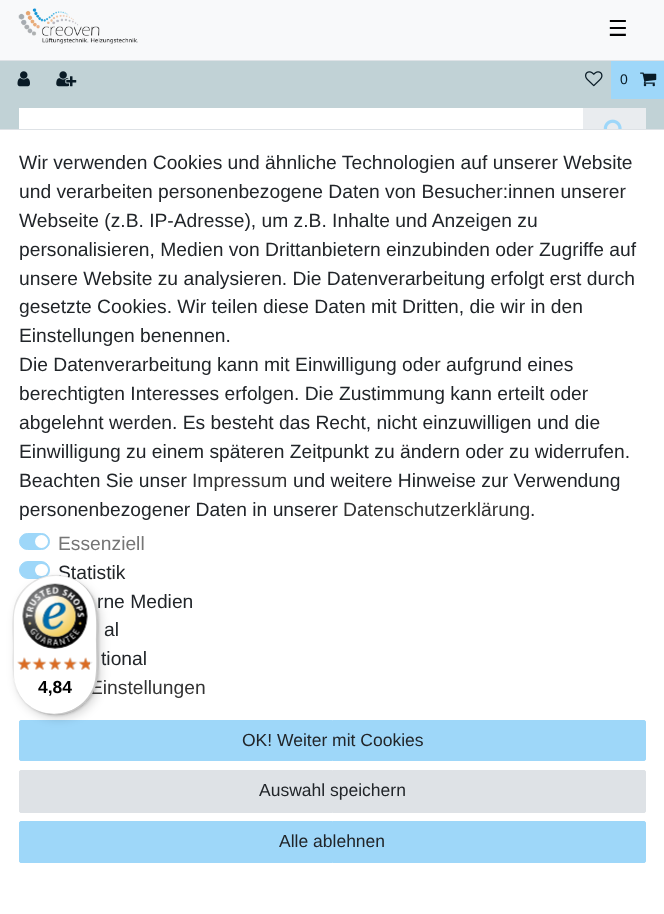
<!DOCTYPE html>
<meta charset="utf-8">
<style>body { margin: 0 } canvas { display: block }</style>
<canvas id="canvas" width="664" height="914"></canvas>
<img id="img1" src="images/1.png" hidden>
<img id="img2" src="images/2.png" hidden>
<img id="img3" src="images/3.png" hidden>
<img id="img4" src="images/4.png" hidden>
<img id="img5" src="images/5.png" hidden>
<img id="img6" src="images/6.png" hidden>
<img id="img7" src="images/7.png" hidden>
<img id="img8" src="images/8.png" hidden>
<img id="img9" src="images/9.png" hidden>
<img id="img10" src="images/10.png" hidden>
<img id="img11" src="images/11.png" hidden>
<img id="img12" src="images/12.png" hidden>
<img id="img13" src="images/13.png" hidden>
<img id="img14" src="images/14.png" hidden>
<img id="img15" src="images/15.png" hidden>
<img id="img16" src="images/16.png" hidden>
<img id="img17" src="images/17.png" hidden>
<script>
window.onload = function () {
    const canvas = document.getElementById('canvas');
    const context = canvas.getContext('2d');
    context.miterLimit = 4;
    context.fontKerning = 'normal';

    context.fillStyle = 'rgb(248, 249, 250)';
    context.fillRect(0, 0, 664, 914);
    context.fillStyle = 'rgb(222, 226, 230)';
    context.fillRect(0, 60, 664, 1);
    context.drawImage(document.getElementById('img1'), 18, 8, 120, 36);
    context.fillStyle = 'rgb(193, 210, 214)';
    context.fillRect(0, 61, 664, 68);
    context.drawImage(document.getElementById('img2'), 17, 71, 13, 16);
    context.drawImage(document.getElementById('img3'), 56, 71, 21, 16);
    context.drawImage(document.getElementById('img4'), 585, 71, 18, 16);
    context.fillStyle = 'rgb(158, 215, 249)';
    context.fillRect(611, 61, 53, 38);
    context.drawImage(document.getElementById('img5'), 640, 72, 17, 15);
    context.fillStyle = 'rgb(255, 255, 255)';
    context.fillRect(19, 108, 564, 21);
    context.fillStyle = 'rgb(233, 236, 239)';
    context.fillRect(583, 108, 63, 21);
    context.drawImage(document.getElementById('img6'), 603, 119, 19, 10);
    context.fillStyle = 'rgb(255, 255, 255)';
    context.fillRect(0, 130, 664, 784);
    context.fillStyle = 'rgb(222, 226, 230)';
    context.fillRect(0, 129, 664, 1);
    context.fillStyle = 'rgb(158, 215, 249)';
    context.beginPath();
    context.roundRect(19.5, 533.5, 30, 16, 8);
    context.fill();
    context.strokeStyle = 'rgb(158, 215, 249)';
    context.stroke();
    context.fillStyle = 'rgb(255, 255, 255)';
    context.beginPath();
    context.arc(41.5, 541.5, 6.5, 0, 2 * Math.PI);
    context.fill();
    context.fillStyle = 'rgb(158, 215, 249)';
    context.beginPath();
    context.roundRect(19.5, 561.5, 30, 17, 8.5);
    context.fill();
    context.stroke();
    context.fillStyle = 'rgb(255, 255, 255)';
    context.beginPath();
    context.roundRect(35, 564, 13, 12, 6);
    context.fill();
    context.beginPath();
    context.roundRect(19.5, 591.5, 30, 17, 8.5);
    context.strokeStyle = 'rgb(173, 181, 189)';
    context.stroke();
    context.fillStyle = 'rgb(158, 215, 249)';
    context.beginPath();
    context.roundRect(19.5, 720.5, 626, 40, 1.5);
    context.fill();
    context.strokeStyle = 'rgb(158, 215, 249)';
    context.stroke();
    context.fillStyle = 'rgb(222, 226, 230)';
    context.beginPath();
    context.roundRect(19.5, 770.5, 626, 42, 1.5);
    context.fill();
    context.strokeStyle = 'rgb(222, 226, 230)';
    context.stroke();
    context.fillStyle = 'rgb(158, 215, 249)';
    context.beginPath();
    context.roundRect(19.5, 821.5, 626, 41, 1.5);
    context.fill();
    context.strokeStyle = 'rgb(158, 215, 249)';
    context.stroke();
    context.fillStyle = 'rgba(0, 0, 0, 0.15)';
    context.filter = 'blur(5px)';
    context.beginPath();
    context.roundRect(16, 579, 85, 140, 42.5);
    context.fill();
    context.filter = 'none';
    context.filter = 'blur(1px)';
    context.beginPath();
    context.roundRect(14, 576, 85, 140, 42.5);
    context.fill();
    context.filter = 'none';
    context.font = '22px DejaVu Sans';
    context.fillStyle = 'rgb(0, 0, 0)';
    context.fillText('☰', 608, 36);
    context.font = '14px Liberation Sans';
    context.fillStyle = 'rgb(9, 27, 38)';
    context.fillText('0', 620, 84);
    context.font = '19.25px Liberation Sans';
    context.fillStyle = 'rgb(33, 37, 41)';
    context.fillText('Wir verwenden Cookies und ähnliche Technologien auf unserer Website', 19, 169);
    context.fillText('und verarbeiten personenbezogene Daten von Besucher:innen unserer', 19, 198);
    context.fillText('Webseite (z.B. IP-Adresse), um z.B. Inhalte und Anzeigen zu', 19, 227);
    context.fillText('personalisieren, Medien von Drittanbietern einzubinden oder Zugriffe auf', 19, 256);
    context.fillText('unsere Website zu analysieren. Die Datenverarbeitung erfolgt erst durch', 19, 285);
    context.fillText('gesetzte Cookies. Wir teilen diese Daten mit Dritten, die wir in den', 19, 313);
    context.fillText('Einstellungen benennen.', 19, 342);
    context.fillText('Die Datenverarbeitung kann mit Einwilligung oder aufgrund eines', 19, 371);
    context.fillText('berechtigten Interesses erfolgen. Die Zustimmung kann erteilt oder', 19, 400);
    context.fillText('abgelehnt werden. Es besteht das Recht, nicht einzuwilligen und die', 19, 429);
    context.fillText('Einwilligung zu einem späteren Zeitpunkt zu ändern oder zu widerrufen.', 19, 458);
    context.fillText('Beachten Sie unser', 19, 487);
    context.fillStyle = 'rgb(51, 51, 51)';
    context.fillText('Impressum', 192, 487);
    context.fillStyle = 'rgb(33, 37, 41)';
    context.fillText('und weitere Hinweise zur Verwendung', 293, 487);
    context.fillText('personenbezogener Daten in unserer', 19, 516);
    context.fillStyle = 'rgb(51, 51, 51)';
    context.fillText('Datenschutzerklärung', 343, 516);
    context.fillStyle = 'rgb(33, 37, 41)';
    context.fillText('.', 530, 516);
    context.fillStyle = 'rgb(118, 118, 118)';
    context.fillText('Essenziell', 58, 550);
    context.fillStyle = 'rgb(33, 37, 41)';
    context.fillText('Statistik', 58, 579);
    context.fillText('rne Medien', 97, 608);
    context.fillText('al', 104, 636);
    context.fillText('tional', 101, 665);
    context.fillStyle = 'rgb(51, 51, 51)';
    context.fillText('Einstellungen', 90, 694);
    context.font = '17.5px Liberation Sans';
    context.fillStyle = 'rgb(33, 37, 41)';
    context.fillText('OK! Weiter mit Cookies', 242, 746);
    context.fillText('Auswahl speichern', 259, 796);
    context.fillText('Alle ablehnen', 279, 847);
    context.fillStyle = 'rgb(255, 255, 255)';
    context.beginPath();
    context.roundRect(13, 575, 85, 140, 42.5);
    context.fill();
    context.fillStyle = 'rgba(0, 0, 0, 0.1)';
    context.beginPath();
    context.moveTo(56, 576);
    context.bezierCurveTo(69, 576, 80, 581, 88, 590);
    context.bezierCurveTo(67, 566, 29, 572, 16, 601);
    context.bezierCurveTo(11, 613, 13, 631, 13, 645);
    context.bezierCurveTo(13, 664, 10, 685, 24, 701);
    context.bezierCurveTo(18, 693, 14, 684, 14, 674);
    context.lineTo(14, 619);
    context.bezierCurveTo(14, 595, 33, 576, 56, 576);
    context.closePath();
    context.fill();
    context.fillStyle = 'rgba(0, 0, 0, 0.2)';
    context.beginPath();
    context.moveTo(34, 709);
    context.bezierCurveTo(59, 724, 91, 710, 97, 681);
    context.bezierCurveTo(99, 671, 98, 656, 98, 645);
    context.bezierCurveTo(98, 619, 102, 594, 75, 580);
    context.bezierCurveTo(100, 594, 96, 619, 96, 644);
    context.bezierCurveTo(96, 654, 97, 669, 95, 680);
    context.bezierCurveTo(90, 708, 59, 722, 34, 709);
    context.closePath();
    context.fill();
    context.fillStyle = 'rgba(50, 50, 50, 0.2)';
    context.beginPath();
    context.moveTo(27, 704);
    context.bezierCurveTo(35, 711, 45, 715, 56, 715);
    context.bezierCurveTo(79, 715, 98, 696, 98, 672);
    context.lineTo(98, 618);
    context.bezierCurveTo(98, 605, 92, 593, 83, 585);
    context.bezierCurveTo(101, 601, 97, 623, 97, 644);
    context.bezierCurveTo(97, 658, 99, 676, 94, 688);
    context.bezierCurveTo(82, 714, 49, 722, 27, 704);
    context.closePath();
    context.fill();
    context.fillStyle = 'rgba(255, 255, 255, 0.3)';
    context.beginPath();
    context.moveTo(27, 704);
    context.bezierCurveTo(35, 711, 45, 715, 56, 715);
    context.bezierCurveTo(79, 715, 98, 696, 98, 672);
    context.lineTo(98, 618);
    context.bezierCurveTo(98, 605, 92, 593, 83, 585);
    context.bezierCurveTo(101, 601, 97, 623, 97, 644);
    context.bezierCurveTo(97, 658, 99, 676, 94, 688);
    context.bezierCurveTo(82, 714, 49, 722, 27, 704);
    context.closePath();
    context.fill();
    context.drawImage(document.getElementById('img7'), 22, 583, 66, 66);
    context.drawImage(document.getElementById('img8'), 17, 657, 14, 13);
    context.drawImage(document.getElementById('img9'), 34, 657, 12, 13);
    context.drawImage(document.getElementById('img10'), 49, 658, 12, 12);
    context.drawImage(document.getElementById('img11'), 64, 657, 14, 13);
    context.drawImage(document.getElementById('img12'), 79, 658, 14, 12);
    context.drawImage(document.getElementById('img13'), 17, 657, 15, 13);
    context.drawImage(document.getElementById('img14'), 32, 657, 15, 13);
    context.drawImage(document.getElementById('img15'), 48, 657, 14, 13);
    context.drawImage(document.getElementById('img16'), 63, 657, 14, 13);
    context.drawImage(document.getElementById('img17'), 78, 657, 12, 13);
    context.font = 'bold 17.5px Liberation Sans';
    context.fillStyle = 'rgb(0, 0, 0)';
    context.fillText('4,84', 38, 693);
};
</script>
